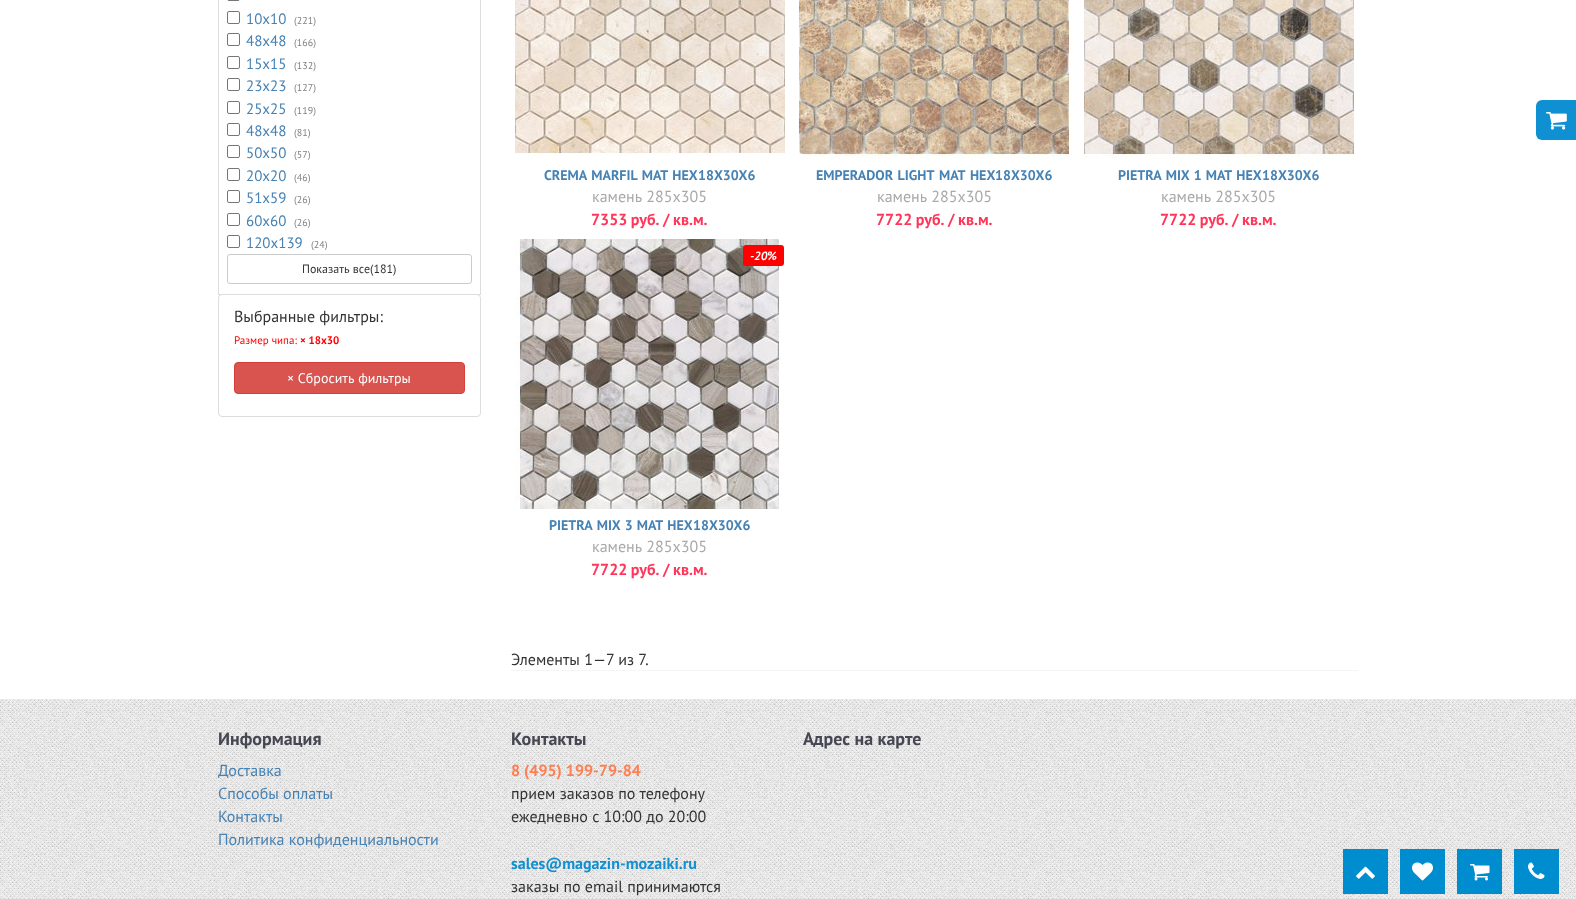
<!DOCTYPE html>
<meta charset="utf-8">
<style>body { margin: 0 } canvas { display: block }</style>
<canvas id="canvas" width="1576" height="899"></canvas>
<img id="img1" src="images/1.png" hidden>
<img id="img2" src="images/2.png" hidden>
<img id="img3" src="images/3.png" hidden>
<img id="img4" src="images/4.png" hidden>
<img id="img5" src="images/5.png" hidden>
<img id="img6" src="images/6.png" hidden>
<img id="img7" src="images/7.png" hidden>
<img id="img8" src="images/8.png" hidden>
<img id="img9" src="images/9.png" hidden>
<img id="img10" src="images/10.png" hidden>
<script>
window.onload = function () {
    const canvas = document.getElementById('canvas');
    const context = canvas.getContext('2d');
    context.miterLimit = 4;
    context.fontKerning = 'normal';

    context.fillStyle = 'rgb(255, 255, 255)';
    context.fillRect(0, 0, 1576, 899);
    context.strokeStyle = 'rgb(221, 221, 221)';
    context.strokeRect(218.5, -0.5, 262, 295);
    context.beginPath();
    context.roundRect(227.5, -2.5, 12, 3, 1.5);
    context.strokeStyle = 'rgb(118, 118, 118)';
    context.stroke();
    context.beginPath();
    context.roundRect(227.5, 11.5, 12, 12, 1.5);
    context.stroke();
    context.beginPath();
    context.roundRect(227.5, 33.5, 12, 12, 1.5);
    context.stroke();
    context.beginPath();
    context.roundRect(227.5, 56.5, 12, 12, 1.5);
    context.stroke();
    context.beginPath();
    context.roundRect(227.5, 78.5, 12, 12, 1.5);
    context.stroke();
    context.beginPath();
    context.roundRect(227.5, 101.5, 12, 12, 1.5);
    context.stroke();
    context.beginPath();
    context.roundRect(227.5, 123.5, 12, 12, 1.5);
    context.stroke();
    context.beginPath();
    context.roundRect(227.5, 145.5, 12, 12, 1.5);
    context.stroke();
    context.beginPath();
    context.roundRect(227.5, 168.5, 12, 12, 1.5);
    context.stroke();
    context.beginPath();
    context.roundRect(227.5, 190.5, 12, 12, 1.5);
    context.stroke();
    context.beginPath();
    context.roundRect(227.5, 213.5, 12, 12, 1.5);
    context.stroke();
    context.beginPath();
    context.roundRect(227.5, 235.5, 12, 12, 1.5);
    context.stroke();
    context.beginPath();
    context.roundRect(227.5, 254.5, 244, 29, 2.5);
    context.strokeStyle = 'rgb(204, 204, 204)';
    context.stroke();
    context.beginPath();
    context.roundRect(218.5, 294.5, 262, 122, 3.5);
    context.fill();
    context.strokeStyle = 'rgb(221, 221, 221)';
    context.stroke();
    context.fillStyle = 'rgb(217, 83, 79)';
    context.beginPath();
    context.roundRect(234.5, 362.5, 230, 31, 3.5);
    context.fill();
    context.strokeStyle = 'rgb(212, 63, 58)';
    context.stroke();
    context.drawImage(document.getElementById('img1'), 515, 0, 270, 156);
    context.drawImage(document.getElementById('img2'), 799, 0, 270, 159);
    context.drawImage(document.getElementById('img3'), 1084, 0, 270, 159);
    context.drawImage(document.getElementById('img4'), 515, 239, 264, 270);
    context.fillStyle = 'rgb(255, 0, 0)';
    context.beginPath();
    context.roundRect(743, 245, 41, 21, 3);
    context.fill();
    context.fillStyle = 'rgb(245, 245, 245)';
    context.fillRect(511, 670, 847, 1);
    context.fillStyle = 'rgb(43, 71, 131)';
    context.filter = 'blur(0.5px)';
    context.beginPath();
    context.roundRect(1576, 90, 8, 151, 6);
    context.fill();
    context.filter = 'none';
    context.fillStyle = 'rgb(14, 144, 210)';
    context.beginPath();
    context.roundRect(1536, 100, 40, 40, [6, 0, 0, 6]);
    context.fill();
    context.drawImage(document.getElementById('img5'), 1546, 112, 21, 18);
    context.drawImage(document.getElementById('img6'), 0, 699, 1576, 200);
    context.fillStyle = 'rgb(0, 141, 208)';
    context.fillRect(1343, 849, 45, 45);
    context.drawImage(document.getElementById('img7'), 1356, 866, 19, 13);
    context.fillRect(1400, 849, 45, 45);
    context.drawImage(document.getElementById('img8'), 1412, 862, 21, 19);
    context.fillRect(1457, 849, 45, 45);
    context.drawImage(document.getElementById('img9'), 1470, 864, 20, 17);
    context.fillRect(1514, 849, 45, 45);
    context.drawImage(document.getElementById('img10'), 1528, 862, 17, 17);
    context.font = '15px PT Sans';
    context.fillStyle = 'rgb(70, 130, 180)';
    context.fillText('10x10', 246, 24);
    context.font = '10px PT Sans';
    context.fillStyle = 'rgb(128, 128, 128)';
    context.fillText('(221)', 294, 24);
    context.font = '15px PT Sans';
    context.fillStyle = 'rgb(70, 130, 180)';
    context.fillText('48x48', 246, 46);
    context.font = '10px PT Sans';
    context.fillStyle = 'rgb(128, 128, 128)';
    context.fillText('(166)', 294, 46);
    context.font = '15px PT Sans';
    context.fillStyle = 'rgb(70, 130, 180)';
    context.fillText('15х15', 246, 69);
    context.font = '10px PT Sans';
    context.fillStyle = 'rgb(128, 128, 128)';
    context.fillText('(132)', 294, 69);
    context.font = '15px PT Sans';
    context.fillStyle = 'rgb(70, 130, 180)';
    context.fillText('23х23', 246, 91);
    context.font = '10px PT Sans';
    context.fillStyle = 'rgb(128, 128, 128)';
    context.fillText('(127)', 294, 91);
    context.font = '15px PT Sans';
    context.fillStyle = 'rgb(70, 130, 180)';
    context.fillText('25х25', 246, 114);
    context.font = '10px PT Sans';
    context.fillStyle = 'rgb(128, 128, 128)';
    context.fillText('(119)', 294, 114);
    context.font = '15px PT Sans';
    context.fillStyle = 'rgb(70, 130, 180)';
    context.fillText('48х48', 246, 136);
    context.font = '10px PT Sans';
    context.fillStyle = 'rgb(128, 128, 128)';
    context.fillText('(81)', 294, 136);
    context.font = '15px PT Sans';
    context.fillStyle = 'rgb(70, 130, 180)';
    context.fillText('50x50', 246, 158);
    context.font = '10px PT Sans';
    context.fillStyle = 'rgb(128, 128, 128)';
    context.fillText('(57)', 294, 158);
    context.font = '15px PT Sans';
    context.fillStyle = 'rgb(70, 130, 180)';
    context.fillText('20х20', 246, 181);
    context.font = '10px PT Sans';
    context.fillStyle = 'rgb(128, 128, 128)';
    context.fillText('(46)', 294, 181);
    context.font = '15px PT Sans';
    context.fillStyle = 'rgb(70, 130, 180)';
    context.fillText('51x59', 246, 203);
    context.font = '10px PT Sans';
    context.fillStyle = 'rgb(128, 128, 128)';
    context.fillText('(26)', 294, 203);
    context.font = '15px PT Sans';
    context.fillStyle = 'rgb(70, 130, 180)';
    context.fillText('60x60', 246, 226);
    context.font = '10px PT Sans';
    context.fillStyle = 'rgb(128, 128, 128)';
    context.fillText('(26)', 294, 226);
    context.font = '15px PT Sans';
    context.fillStyle = 'rgb(70, 130, 180)';
    context.fillText('120x139', 246, 248);
    context.font = '10px PT Sans';
    context.fillStyle = 'rgb(128, 128, 128)';
    context.fillText('(24)', 311, 248);
    context.font = '12px PT Sans';
    context.fillStyle = 'rgb(51, 51, 51)';
    context.fillText('Показать все(181)', 302, 273);
    context.font = '16px PT Sans';
    context.fillText('Выбранные фильтры:', 234, 322);
    context.font = '11px PT Sans';
    context.fillStyle = 'rgb(255, 0, 0)';
    context.fillText('Размер чипа:', 234, 344);
    context.font = 'bold 11px PT Sans';
    context.fillText('× 18x30', 300, 344);
    context.font = '14px PT Sans';
    context.fillStyle = 'rgb(255, 255, 255)';
    context.fillText('× Сбросить фильтры', 287, 383);
    context.wordSpacing = '0.5px';
    context.font = 'bold 14px PT Sans';
    context.fillStyle = 'rgb(70, 130, 180)';
    context.fillText('CREMA MARFIL MAT HEX', 544, 180);
    context.wordSpacing = '0px';
    context.fillText('18X30X6', 698, 180);
    context.font = '16px PT Sans';
    context.fillStyle = 'rgb(169, 169, 169)';
    context.fillText('камень 285x305', 592, 202);
    context.wordSpacing = '-0.5px';
    context.font = 'bold 16px PT Sans';
    context.fillStyle = 'rgb(255, 54, 89)';
    context.fillText('7353 руб. / кв.м.', 591, 225);
    context.wordSpacing = '1px';
    context.font = 'bold 14px PT Sans';
    context.fillStyle = 'rgb(70, 130, 180)';
    context.fillText('EMPERADOR LIGHT MAT HEX', 816, 180);
    context.wordSpacing = '0px';
    context.fillText('18X30X6', 995, 180);
    context.font = '16px PT Sans';
    context.fillStyle = 'rgb(169, 169, 169)';
    context.fillText('камень 285x305', 877, 202);
    context.wordSpacing = '-0.5px';
    context.font = 'bold 16px PT Sans';
    context.fillStyle = 'rgb(255, 54, 89)';
    context.fillText('7722 руб. / кв.м.', 876, 225);
    context.wordSpacing = '0.5px';
    context.font = 'bold 14px PT Sans';
    context.fillStyle = 'rgb(70, 130, 180)';
    context.fillText('PIETRA MIX 1 MAT HEX', 1118, 180);
    context.wordSpacing = '0px';
    context.fillText('18X30X6', 1262, 180);
    context.font = '16px PT Sans';
    context.fillStyle = 'rgb(169, 169, 169)';
    context.fillText('камень 285x305', 1161, 202);
    context.wordSpacing = '-0.5px';
    context.font = 'bold 16px PT Sans';
    context.fillStyle = 'rgb(255, 54, 89)';
    context.fillText('7722 руб. / кв.м.', 1160, 225);
    context.wordSpacing = '0px';
    context.font = 'italic bold 12px PT Sans';
    context.fillStyle = 'rgb(255, 255, 255)';
    context.fillText('-20%', 750, 260);
    context.wordSpacing = '0.5px';
    context.font = 'bold 14px PT Sans';
    context.fillStyle = 'rgb(70, 130, 180)';
    context.fillText('PIETRA MIX 3 MAT HEX', 549, 530);
    context.wordSpacing = '0px';
    context.fillText('18X30X6', 693, 530);
    context.font = '16px PT Sans';
    context.fillStyle = 'rgb(169, 169, 169)';
    context.fillText('камень 285x305', 592, 552);
    context.wordSpacing = '-0.5px';
    context.font = 'bold 16px PT Sans';
    context.fillStyle = 'rgb(255, 54, 89)';
    context.fillText('7722 руб. / кв.м.', 591, 575);
    context.wordSpacing = '0px';
    context.font = '16px PT Sans';
    context.fillStyle = 'rgb(51, 51, 51)';
    context.fillText('Элементы 1—7 из 7.', 511, 665);
    context.font = 'bold 18px PT Sans';
    context.fillStyle = 'rgb(70, 71, 82)';
    context.fillText('Информация', 218, 745);
    context.font = '16px PT Sans';
    context.fillStyle = 'rgb(70, 130, 180)';
    context.fillText('Доставка', 218, 776);
    context.fillText('Способы оплаты', 218, 799);
    context.fillText('Контакты', 218, 822);
    context.fillText('Политика конфиденциальности', 218, 845);
    context.font = 'bold 18px PT Sans';
    context.fillStyle = 'rgb(70, 71, 82)';
    context.fillText('Контакты', 511, 745);
    context.font = 'bold 16px PT Sans';
    context.fillStyle = 'rgb(255, 127, 80)';
    context.fillText('8 (495) 199-79-84', 511, 776);
    context.font = '16px PT Sans';
    context.fillStyle = 'rgb(51, 51, 51)';
    context.fillText('прием заказов по телефону', 511, 799);
    context.fillText('ежедневно с 10:00 до 20:00', 511, 822);
    context.font = 'bold 16px PT Sans';
    context.fillStyle = 'rgb(14, 144, 210)';
    context.fillText('sales@magazin-mozaiki.ru', 511, 869);
    context.font = '16px PT Sans';
    context.fillStyle = 'rgb(51, 51, 51)';
    context.fillText('заказы по email принимаются', 511, 892);
    context.font = 'bold 18px PT Sans';
    context.fillStyle = 'rgb(70, 71, 82)';
    context.fillText('Адрес на карте', 803, 745);
};
</script>
